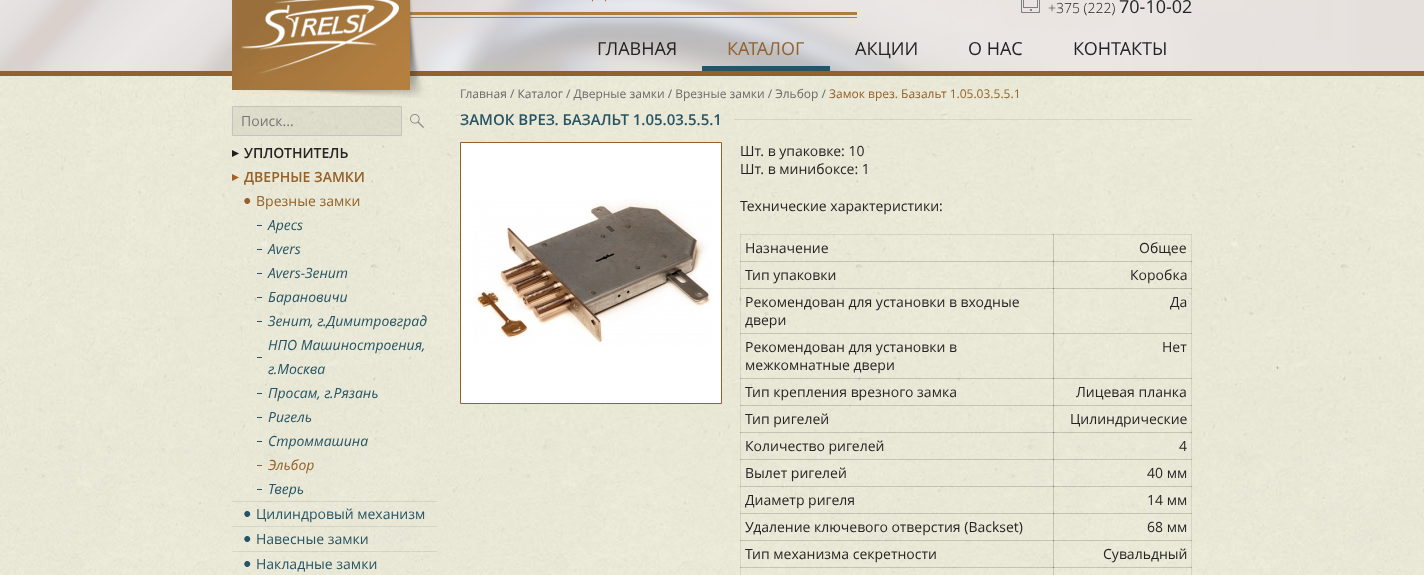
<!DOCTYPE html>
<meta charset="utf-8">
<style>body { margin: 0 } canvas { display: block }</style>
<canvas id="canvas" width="1424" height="575"></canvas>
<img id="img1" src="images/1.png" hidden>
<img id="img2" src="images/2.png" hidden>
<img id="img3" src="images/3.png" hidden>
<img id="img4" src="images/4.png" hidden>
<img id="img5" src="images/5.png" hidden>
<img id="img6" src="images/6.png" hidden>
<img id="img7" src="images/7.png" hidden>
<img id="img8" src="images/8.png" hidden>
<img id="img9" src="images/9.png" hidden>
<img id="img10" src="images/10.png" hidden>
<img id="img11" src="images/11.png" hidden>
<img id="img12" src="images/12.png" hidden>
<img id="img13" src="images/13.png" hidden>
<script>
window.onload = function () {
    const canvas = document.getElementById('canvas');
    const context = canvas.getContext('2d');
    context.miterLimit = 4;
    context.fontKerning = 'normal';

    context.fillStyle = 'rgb(255, 255, 255)';
    context.fillRect(0, 0, 1424, 575);
    context.drawImage(document.getElementById('img1'), 0, 76, 1424, 499);
    context.drawImage(document.getElementById('img2'), 0, 0, 1424, 71);
    context.fillStyle = 'rgb(148, 97, 42)';
    context.fillRect(0, 71, 1424, 5);
    context.drawImage(document.getElementById('img3'), 232, 0, 625, 98);
    context.drawImage(document.getElementById('img4'), 1021, 0, 19, 13);
    context.fillStyle = 'rgb(39, 84, 99)';
    context.fillRect(702, 66, 128, 5);
    context.fillStyle = 'rgba(0, 0, 0, 0.05)';
    context.beginPath();
    context.rect(232.5, 106.5, 169, 29);
    context.fill();
    context.strokeStyle = 'rgb(195, 195, 195)';
    context.stroke();
    context.drawImage(document.getElementById('img5'), 410, 114, 14, 14);
    context.drawImage(document.getElementById('img6'), 232, 150, 7, 7);
    context.drawImage(document.getElementById('img7'), 232, 174, 7, 7);
    context.fillStyle = 'rgba(36, 36, 36, 0.1)';
    context.fillRect(232, 501, 205, 1);
    context.drawImage(document.getElementById('img8'), 244, 198, 7, 6);
    context.fillStyle = 'rgb(39, 84, 99)';
    context.fillRect(257, 225, 5, 1);
    context.fillRect(257, 249, 5, 1);
    context.fillRect(257, 273, 5, 1);
    context.fillRect(257, 297, 5, 1);
    context.fillRect(257, 321, 5, 1);
    context.fillRect(257, 357, 5, 1);
    context.fillRect(257, 393, 5, 1);
    context.fillRect(257, 417, 5, 1);
    context.fillRect(257, 441, 5, 1);
    context.fillStyle = 'rgb(148, 97, 42)';
    context.fillRect(257, 465, 5, 1);
    context.fillStyle = 'rgb(39, 84, 99)';
    context.fillRect(257, 489, 5, 1);
    context.fillStyle = 'rgba(36, 36, 36, 0.1)';
    context.fillRect(232, 526, 205, 1);
    context.drawImage(document.getElementById('img9'), 244, 511, 7, 6);
    context.fillRect(232, 551, 205, 1);
    context.drawImage(document.getElementById('img10'), 244, 536, 7, 6);
    context.drawImage(document.getElementById('img11'), 244, 561, 7, 6);
    context.fillStyle = 'rgba(39, 39, 39, 0.1)';
    context.fillRect(734, 119, 458, 1);
    context.drawImage(document.getElementById('img12'), 460, 109, 274, 20);
    context.fillStyle = 'rgb(255, 255, 255)';
    context.beginPath();
    context.rect(460.5, 142.5, 261, 261);
    context.fill();
    context.strokeStyle = 'rgb(148, 97, 42)';
    context.stroke();
    context.drawImage(document.getElementById('img13'), 473, 199, 239, 146);
    context.fillStyle = 'rgba(36, 36, 36, 0.1)';
    context.fillRect(1053, 234, 139, 1);
    context.fillRect(1053, 261, 139, 1);
    context.fillRect(1053, 288, 139, 1);
    context.fillRect(1053, 333, 139, 1);
    context.fillRect(1053, 378, 139, 1);
    context.fillRect(1053, 405, 139, 1);
    context.fillRect(1053, 432, 139, 1);
    context.fillRect(1053, 459, 139, 1);
    context.fillRect(1053, 486, 139, 1);
    context.fillRect(1053, 513, 139, 1);
    context.fillRect(1053, 540, 139, 1);
    context.fillRect(1053, 567, 139, 1);
    context.fillRect(1191, 567, 1, 8);
    context.fillRect(1191, 540, 1, 28);
    context.fillRect(1191, 513, 1, 28);
    context.fillRect(1191, 486, 1, 28);
    context.fillRect(1191, 459, 1, 28);
    context.fillRect(1191, 432, 1, 28);
    context.fillRect(1191, 405, 1, 28);
    context.fillRect(1191, 378, 1, 28);
    context.fillRect(1191, 333, 1, 46);
    context.fillRect(1191, 288, 1, 46);
    context.fillRect(1191, 261, 1, 28);
    context.fillRect(1191, 234, 1, 28);
    context.fillRect(1053, 567, 1, 8);
    context.fillRect(740, 567, 314, 1);
    context.fillRect(1053, 567, 1, 8);
    context.fillRect(1053, 567, 139, 1);
    context.fillRect(1053, 540, 1, 28);
    context.fillRect(740, 540, 314, 1);
    context.fillRect(1053, 540, 1, 28);
    context.fillRect(1053, 540, 139, 1);
    context.fillRect(1053, 513, 1, 28);
    context.fillRect(740, 513, 314, 1);
    context.fillRect(1053, 513, 1, 28);
    context.fillRect(1053, 513, 139, 1);
    context.fillRect(1053, 486, 1, 28);
    context.fillRect(740, 486, 314, 1);
    context.fillRect(1053, 486, 1, 28);
    context.fillRect(1053, 486, 139, 1);
    context.fillRect(1053, 459, 1, 28);
    context.fillRect(740, 459, 314, 1);
    context.fillRect(1053, 459, 1, 28);
    context.fillRect(1053, 459, 139, 1);
    context.fillRect(1053, 432, 1, 28);
    context.fillRect(740, 432, 314, 1);
    context.fillRect(1053, 432, 1, 28);
    context.fillRect(1053, 432, 139, 1);
    context.fillRect(1053, 405, 1, 28);
    context.fillRect(740, 405, 314, 1);
    context.fillRect(1053, 405, 1, 28);
    context.fillRect(1053, 405, 139, 1);
    context.fillRect(1053, 378, 1, 28);
    context.fillRect(740, 378, 314, 1);
    context.fillRect(1053, 378, 1, 28);
    context.fillRect(1053, 378, 139, 1);
    context.fillRect(1053, 333, 1, 46);
    context.fillRect(740, 333, 314, 1);
    context.fillRect(1053, 333, 1, 46);
    context.fillRect(1053, 333, 139, 1);
    context.fillRect(1053, 288, 1, 46);
    context.fillRect(740, 288, 314, 1);
    context.fillRect(1053, 288, 1, 46);
    context.fillRect(1053, 288, 139, 1);
    context.fillRect(1053, 261, 1, 28);
    context.fillRect(740, 261, 314, 1);
    context.fillRect(1053, 261, 1, 28);
    context.fillRect(1053, 261, 139, 1);
    context.fillRect(1053, 234, 1, 28);
    context.fillRect(740, 234, 314, 1);
    context.fillRect(1053, 234, 1, 28);
    context.fillRect(740, 567, 1, 8);
    context.fillRect(740, 567, 314, 1);
    context.fillRect(740, 540, 1, 28);
    context.fillRect(740, 540, 314, 1);
    context.fillRect(740, 513, 1, 28);
    context.fillRect(740, 513, 314, 1);
    context.fillRect(740, 486, 1, 28);
    context.fillRect(740, 486, 314, 1);
    context.fillRect(740, 459, 1, 28);
    context.fillRect(740, 459, 314, 1);
    context.fillRect(740, 432, 1, 28);
    context.fillRect(740, 432, 314, 1);
    context.fillRect(740, 405, 1, 28);
    context.fillRect(740, 405, 314, 1);
    context.fillRect(740, 378, 1, 28);
    context.fillRect(740, 378, 314, 1);
    context.fillRect(740, 333, 1, 46);
    context.fillRect(740, 333, 314, 1);
    context.fillRect(740, 288, 1, 46);
    context.fillRect(740, 288, 314, 1);
    context.fillRect(740, 261, 1, 28);
    context.fillRect(740, 261, 314, 1);
    context.fillRect(740, 234, 1, 28);
    context.font = '300 14px Open Sans';
    context.fillStyle = 'rgb(36, 36, 36)';
    context.fillText('+375 (222)', 1048, 13);
    context.font = '18px Open Sans';
    context.fillText('70-10-02', 1119, 13);
    context.fillText('ГЛАВНАЯ', 597, 55);
    context.fillStyle = 'rgb(148, 97, 42)';
    context.fillText('КАТАЛОГ', 727, 55);
    context.fillStyle = 'rgb(36, 36, 36)';
    context.fillText('АКЦИИ', 855, 55);
    context.fillText('О НАС', 968, 55);
    context.fillText('КОНТАКТЫ', 1073, 55);
    context.font = '14px Open Sans';
    context.fillStyle = 'rgb(117, 117, 117)';
    context.fillText('Поиск...', 241, 126);
    context.font = '600 14px Open Sans';
    context.fillStyle = 'rgb(36, 36, 36)';
    context.fillText('УПЛОТНИТЕЛЬ', 244, 158);
    context.fillStyle = 'rgb(148, 97, 42)';
    context.fillText('ДВЕРНЫЕ ЗАМКИ', 244, 182);
    context.font = '14px Open Sans';
    context.fillText('Врезные замки', 256, 206);
    context.font = 'italic 14px Open Sans';
    context.fillStyle = 'rgb(39, 84, 99)';
    context.fillText('Apecs', 268, 230);
    context.fillText('Avers', 268, 254);
    context.fillText('Avers-Зенит', 268, 278);
    context.fillText('Барановичи', 268, 302);
    context.fillText('Зенит, г.Димитровград', 268, 326);
    context.fillText('НПО Машиностроения,', 268, 350);
    context.fillText('г.Москва', 268, 374);
    context.fillText('Просам, г.Рязань', 268, 398);
    context.fillText('Ригель', 268, 422);
    context.fillText('Строммашина', 268, 446);
    context.fillStyle = 'rgb(148, 97, 42)';
    context.fillText('Эльбор', 268, 470);
    context.fillStyle = 'rgb(39, 84, 99)';
    context.fillText('Тверь', 268, 494);
    context.font = '14px Open Sans';
    context.fillText('Цилиндровый механизм', 256, 519);
    context.fillText('Навесные замки', 256, 544);
    context.fillText('Накладные замки', 256, 569);
    context.font = '12px Open Sans';
    context.fillStyle = 'rgb(107, 107, 107)';
    context.fillText('Главная / Каталог / Дверные замки / Врезные замки / Эльбор /', 460, 98);
    context.fillStyle = 'rgb(148, 97, 42)';
    context.fillText('Замок врез. Базальт 1.05.03.5.5.1', 829, 98);
    context.font = '600 15px Open Sans';
    context.fillStyle = 'rgb(39, 84, 99)';
    context.fillText('ЗАМОК ВРЕЗ. БАЗАЛЬТ 1.05.03.5.5.1', 460, 125);
    context.font = '14px Open Sans';
    context.fillStyle = 'rgb(36, 36, 36)';
    context.fillText('Шт. в упаковке: 10', 740, 156);
    context.fillText('Шт. в минибоксе: 1', 740, 174);
    context.fillText('Технические характеристики:', 740, 211);
    context.fillText('Назначение', 745, 253);
    context.fillText('Общее', 1139, 253);
    context.fillText('Тип упаковки', 745, 280);
    context.fillText('Коробка', 1130, 280);
    context.fillText('Рекомендован для установки в входные', 745, 307);
    context.fillText('двери', 745, 325);
    context.fillText('Да', 1170, 307);
    context.fillText('Рекомендован для установки в', 745, 352);
    context.fillText('межкомнатные двери', 745, 370);
    context.fillText('Нет', 1162, 352);
    context.fillText('Тип крепления врезного замка', 745, 397);
    context.fillText('Лицевая планка', 1076, 397);
    context.fillText('Тип ригелей', 745, 424);
    context.fillText('Цилиндрические', 1070, 424);
    context.fillText('Количество ригелей', 745, 451);
    context.fillText('4', 1179, 451);
    context.fillText('Вылет ригелей', 745, 478);
    context.fillText('40 мм', 1147, 478);
    context.fillText('Диаметр ригеля', 745, 505);
    context.fillText('14 мм', 1147, 505);
    context.fillText('Удаление ключевого отверстия (Backset)', 745, 532);
    context.fillText('68 мм', 1147, 532);
    context.fillText('Тип механизма секретности', 745, 559);
    context.fillText('Сувальдный', 1103, 559);
};
</script>
